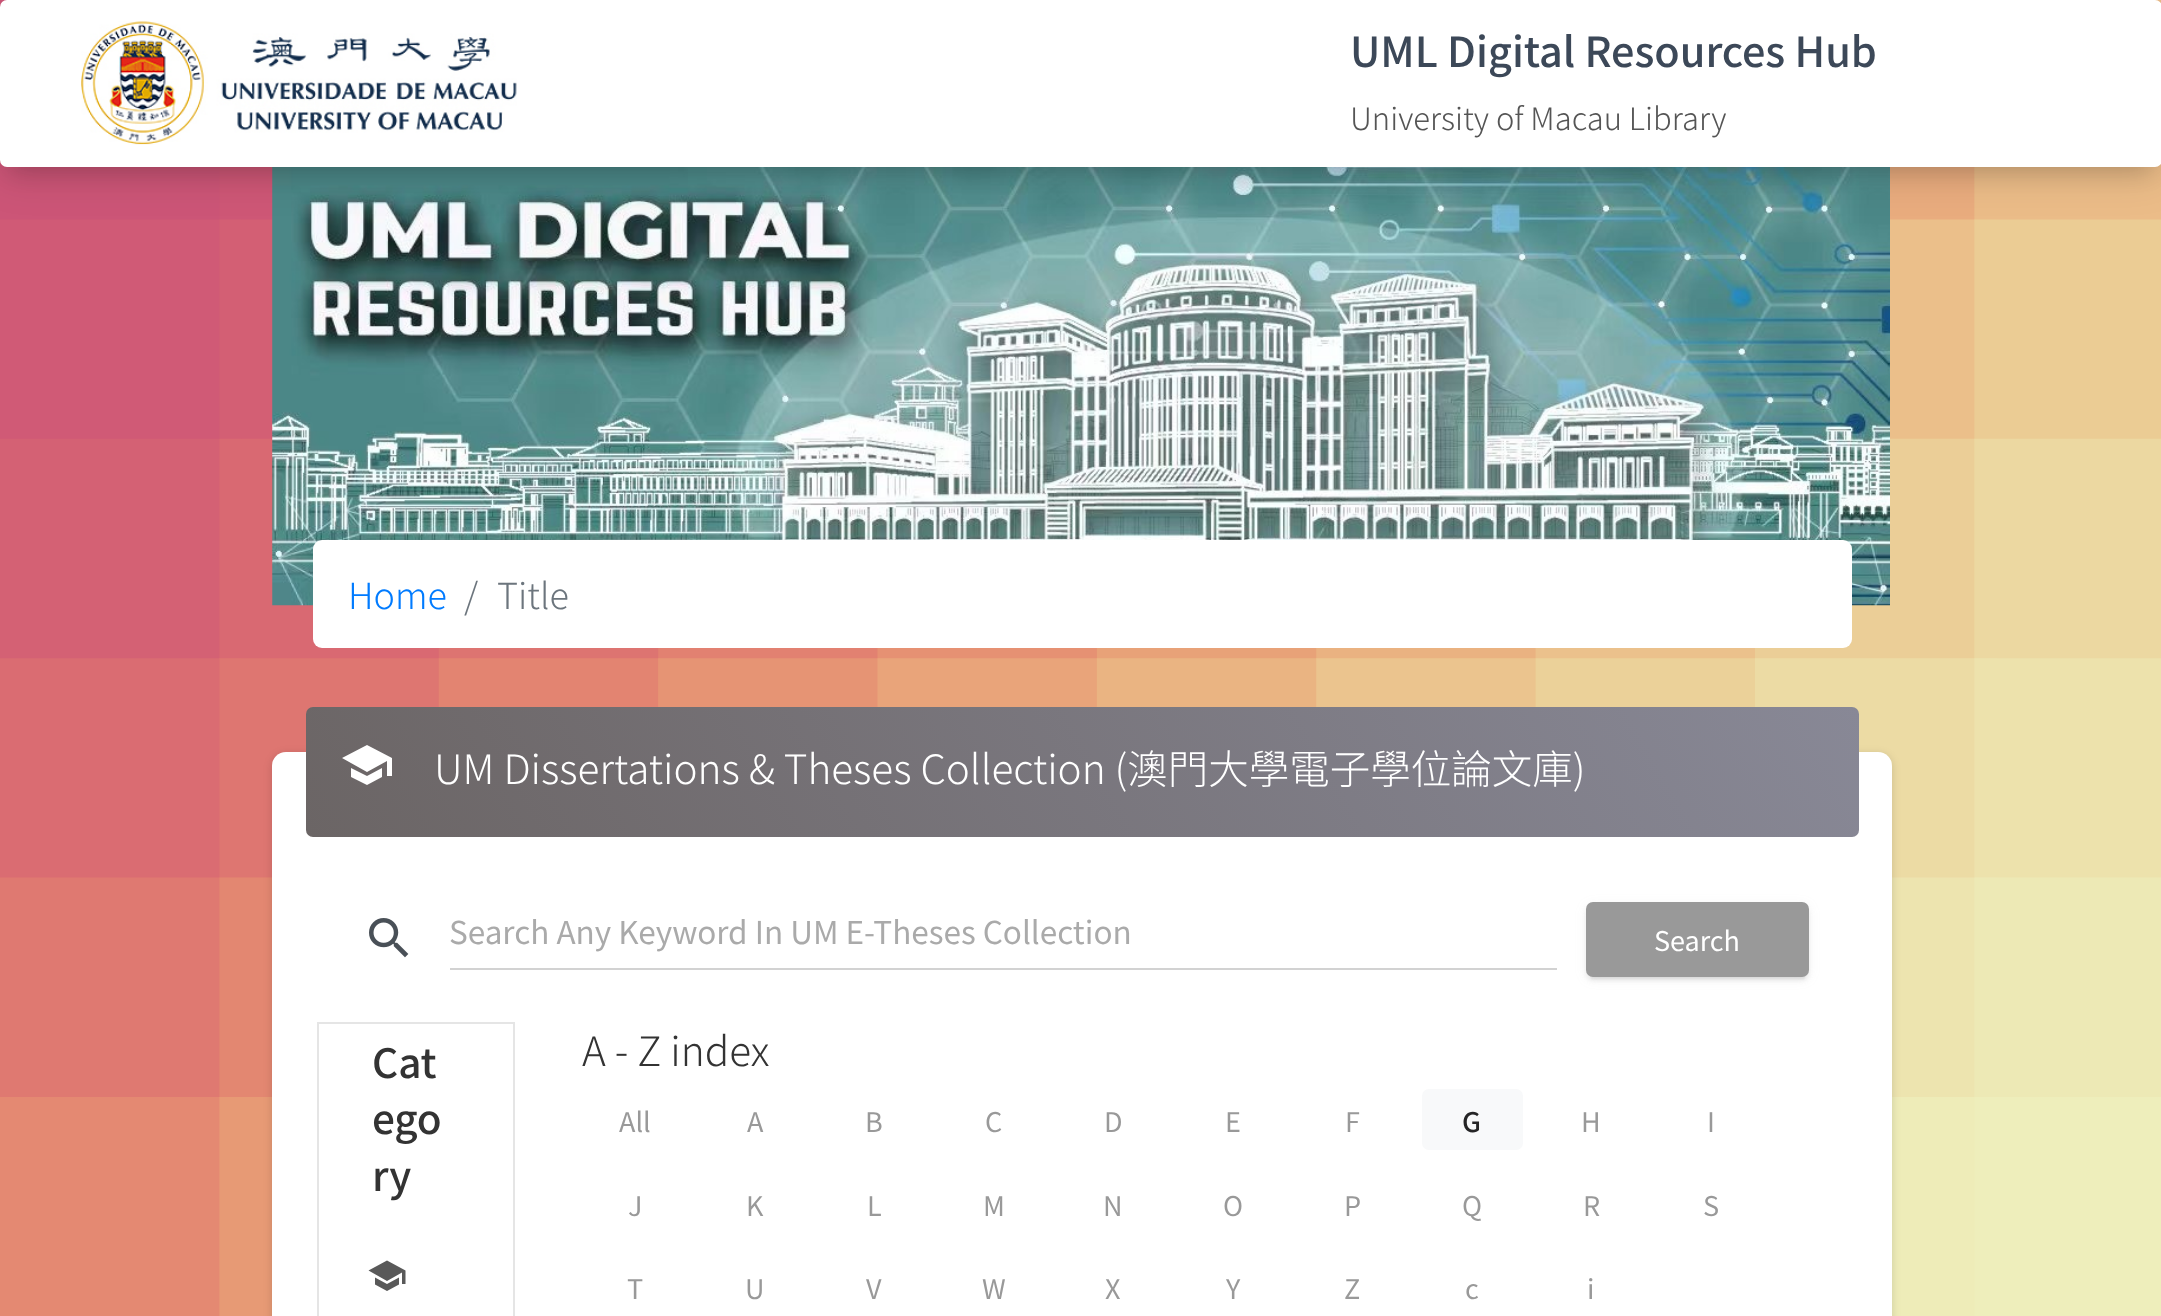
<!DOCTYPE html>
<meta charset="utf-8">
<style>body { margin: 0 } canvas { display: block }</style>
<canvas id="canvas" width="2161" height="1316"></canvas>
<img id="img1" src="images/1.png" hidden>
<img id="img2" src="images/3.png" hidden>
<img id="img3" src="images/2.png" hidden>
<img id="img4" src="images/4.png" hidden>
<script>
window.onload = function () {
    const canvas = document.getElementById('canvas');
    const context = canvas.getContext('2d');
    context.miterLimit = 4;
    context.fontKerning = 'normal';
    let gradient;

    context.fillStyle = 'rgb(255, 255, 255)';
    context.fillRect(0, 0, 2161, 1316);
    context.drawImage(document.getElementById('img1'), 0, 0, 2161, 1316);
    context.drawImage(document.getElementById('img2'), 272, 167, 1618, 439);
    context.fillStyle = 'rgba(0, 0, 0, 0.15)';
    context.filter = 'blur(11px)';
    context.beginPath();
    context.rect(11, 27, 2140, 144);
    context.fill();
    context.filter = 'none';
    context.fillStyle = 'rgba(0, 0, 0, 0.12)';
    context.filter = 'blur(20px)';
    context.beginPath();
    context.roundRect(0, 9, 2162, 167, 7);
    context.fill();
    context.filter = 'none';
    context.fillStyle = 'rgb(255, 255, 255)';
    context.beginPath();
    context.roundRect(0, 0, 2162, 167, 7);
    context.fill();
    context.drawImage(document.getElementById('img3'), 81, 21, 436, 124);
    context.beginPath();
    context.roundRect(313, 540, 1539, 108, 9);
    context.fill();
    context.fillStyle = 'rgba(0, 0, 0, 0.14)';
    context.filter = 'blur(4.5px)';
    context.beginPath();
    context.roundRect(272, 754, 1620, 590, 14);
    context.fill();
    context.filter = 'none';
    context.fillStyle = 'rgb(255, 255, 255)';
    context.beginPath();
    context.roundRect(272, 752, 1620, 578, 14);
    context.fill();
    gradient = context.createLinearGradient(472, 1124, 1693, 419);
    gradient.addColorStop(0, 'rgb(107, 101, 101)');
    gradient.addColorStop(1, 'rgb(136, 136, 150)');
    context.fillStyle = gradient;
    context.beginPath();
    context.roundRect(306, 707, 1553, 130, 7);
    context.fill();
    context.fillStyle = 'rgb(255, 255, 255)';
    context.beginPath();
    context.moveTo(367, 745);
    context.lineTo(392, 758);
    context.lineTo(392, 776);
    context.lineTo(387, 776);
    context.lineTo(387, 761);
    context.lineTo(367, 772);
    context.lineTo(342, 758);
    context.closePath();
    context.moveTo(351, 768);
    context.lineTo(367, 776);
    context.lineTo(382, 768);
    context.lineTo(382, 777);
    context.lineTo(367, 785);
    context.lineTo(351, 777);
    context.closePath();
    context.fill();
    context.drawImage(document.getElementById('img4'), 369, 918, 40, 40);
    context.fillStyle = 'rgb(210, 210, 210)';
    context.fillRect(450, 968, 1107, 2);
    context.fillStyle = 'rgba(153, 153, 153, 0.12)';
    context.filter = 'blur(5.5px)';
    context.beginPath();
    context.roundRect(1586, 905, 223, 74, 7);
    context.fill();
    context.filter = 'none';
    context.fillStyle = 'rgba(153, 153, 153, 0.2)';
    context.filter = 'blur(1px)';
    context.beginPath();
    context.roundRect(1591, 914, 214, 65, 2);
    context.fill();
    context.filter = 'none';
    context.fillStyle = 'rgba(153, 153, 153, 0.14)';
    context.filter = 'blur(2px)';
    context.beginPath();
    context.roundRect(1586, 907, 223, 74, 7);
    context.fill();
    context.filter = 'none';
    context.fillStyle = 'rgb(153, 153, 153)';
    context.beginPath();
    context.roundRect(1586, 902, 223, 75, 7);
    context.fill();
    context.strokeStyle = 'rgb(229, 229, 229)';
    context.lineWidth = 2;
    context.strokeRect(318, 1023, 196, 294);
    context.fillStyle = 'rgb(89, 89, 89)';
    context.beginPath();
    context.moveTo(387, 1260.5);
    context.lineTo(405.5, 1270.5);
    context.lineTo(405.5, 1284);
    context.lineTo(402, 1284);
    context.lineTo(402, 1272.5);
    context.lineTo(387, 1281);
    context.lineTo(368.5, 1270.5);
    context.closePath();
    context.moveTo(375, 1277.5);
    context.lineTo(387, 1284);
    context.lineTo(399, 1277.5);
    context.lineTo(399, 1284.5);
    context.lineTo(387, 1291);
    context.lineTo(375, 1284.5);
    context.closePath();
    context.fill();
    context.fillStyle = 'rgb(248, 249, 250)';
    context.beginPath();
    context.roundRect(1422, 1089, 101, 61, 7);
    context.fill();
    context.font = '500 41.4px Noto Sans TC';
    context.fillStyle = 'rgb(60, 72, 88)';
    context.fillText('UML Digital Resources Hub', 1350, 67);
    context.font = '300 31px Noto Sans TC';
    context.fillStyle = 'rgb(85, 85, 85)';
    context.fillText('University of Macau Library', 1350, 130);
    context.font = '300 36px Noto Sans TC';
    context.fillStyle = 'rgb(0, 123, 255)';
    context.fillText('Home', 348, 609);
    context.fillStyle = 'rgb(108, 117, 125)';
    context.fillText('/', 464, 609);
    context.fillText('Title', 497, 609);
    context.font = '300 40.5px Noto Sans TC';
    context.fillStyle = 'rgb(255, 255, 255)';
    context.fillText('UM Dissertations & Theses Collection (澳門大學電子學位論文庫)', 434, 784);
    context.font = '31.5px Noto Sans TC';
    context.fillStyle = 'rgb(170, 170, 170)';
    context.fillText('Search Any Keyword In UM E-Theses Collection', 449, 944);
    context.font = '27px Noto Sans TC';
    context.fillStyle = 'rgb(255, 255, 255)';
    context.fillText('Search', 1654, 951);
    context.font = '500 40.5px Noto Sans TC';
    context.fillStyle = 'rgb(51, 51, 51)';
    context.fillText('Cat', 372, 1078);
    context.fillText('ego', 372, 1134);
    context.fillText('ry', 372, 1191);
    context.font = '300 40.5px Noto Sans TC';
    context.fillText('A - Z index', 582, 1066);
    context.font = '27px Noto Sans TC';
    context.fillStyle = 'rgb(153, 153, 153)';
    context.fillText('All', 619, 1132);
    context.fillText('A', 747, 1132);
    context.fillText('B', 865, 1132);
    context.fillText('C', 985, 1132);
    context.fillText('D', 1104, 1132);
    context.fillText('E', 1225, 1132);
    context.fillText('F', 1345, 1132);
    context.font = '500 27px Noto Sans TC';
    context.fillStyle = 'rgb(37, 37, 38)';
    context.fillText('G', 1462, 1132);
    context.font = '27px Noto Sans TC';
    context.fillStyle = 'rgb(153, 153, 153)';
    context.fillText('H', 1581, 1132);
    context.fillText('I', 1707, 1132);
    context.fillText('J', 628, 1216);
    context.fillText('K', 746, 1216);
    context.fillText('L', 867, 1216);
    context.fillText('M', 983, 1216);
    context.fillText('N', 1103, 1216);
    context.fillText('O', 1223, 1216);
    context.fillText('P', 1344, 1216);
    context.fillText('Q', 1462, 1216);
    context.fillText('R', 1583, 1216);
    context.fillText('S', 1703, 1216);
    context.fillText('T', 627, 1299);
    context.fillText('U', 745, 1299);
    context.fillText('V', 866, 1299);
    context.fillText('W', 982, 1299);
    context.fillText('X', 1105, 1299);
    context.fillText('Y', 1226, 1299);
    context.fillText('Z', 1344, 1299);
    context.fillText('c', 1465, 1299);
    context.fillText('i', 1587, 1299);
};
</script>
